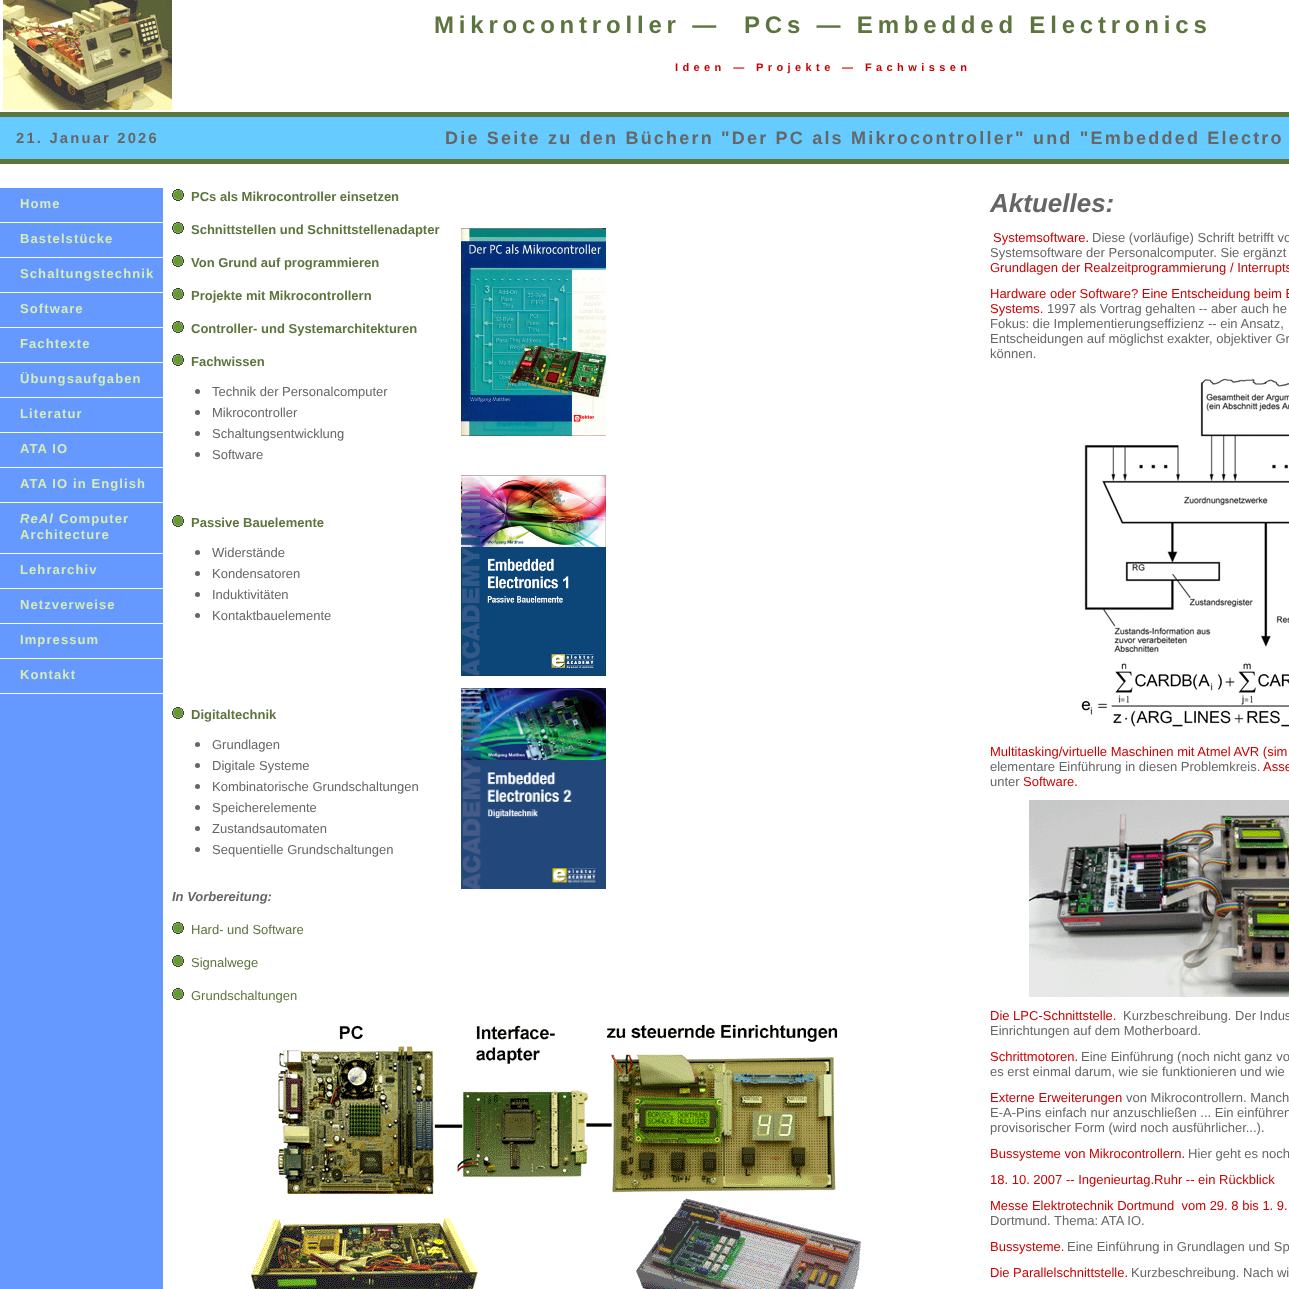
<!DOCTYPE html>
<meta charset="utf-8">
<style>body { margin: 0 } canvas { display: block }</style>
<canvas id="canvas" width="1289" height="1289"></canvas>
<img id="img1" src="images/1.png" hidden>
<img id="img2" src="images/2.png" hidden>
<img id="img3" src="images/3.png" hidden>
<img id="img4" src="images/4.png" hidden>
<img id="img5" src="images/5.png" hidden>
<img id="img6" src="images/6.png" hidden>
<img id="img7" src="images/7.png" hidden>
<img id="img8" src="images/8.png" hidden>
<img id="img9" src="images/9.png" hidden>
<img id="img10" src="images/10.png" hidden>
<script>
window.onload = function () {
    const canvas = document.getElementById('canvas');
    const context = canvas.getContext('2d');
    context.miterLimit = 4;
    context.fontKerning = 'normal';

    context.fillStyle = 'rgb(255, 255, 255)';
    context.fillRect(0, 0, 1289, 1289);
    context.drawImage(document.getElementById('img1'), 3, 0, 169, 110);
    context.fillStyle = 'rgb(92, 116, 61)';
    context.fillRect(0, 112, 1289, 5);
    context.fillStyle = 'rgb(102, 204, 255)';
    context.fillRect(0, 117, 1289, 42);
    context.fillStyle = 'rgb(92, 116, 61)';
    context.fillRect(0, 159, 1289, 5);
    context.fillStyle = 'rgb(102, 153, 255)';
    context.fillRect(0, 188, 163, 1101);
    context.fillStyle = 'rgb(244, 255, 228)';
    context.fillRect(0, 222, 163, 1);
    context.fillRect(0, 257, 163, 1);
    context.fillRect(0, 292, 163, 1);
    context.fillRect(0, 327, 163, 1);
    context.fillRect(0, 362, 163, 1);
    context.fillRect(0, 397, 163, 1);
    context.fillRect(0, 432, 163, 1);
    context.fillRect(0, 467, 163, 1);
    context.fillRect(0, 502, 163, 1);
    context.fillRect(0, 553, 163, 1);
    context.fillRect(0, 588, 163, 1);
    context.fillRect(0, 623, 163, 1);
    context.fillRect(0, 658, 163, 1);
    context.fillRect(0, 693, 163, 1);
    context.drawImage(document.getElementById('img2'), 172, 189, 12, 12);
    context.drawImage(document.getElementById('img2'), 172, 222, 12, 12);
    context.drawImage(document.getElementById('img2'), 172, 255, 12, 12);
    context.drawImage(document.getElementById('img2'), 172, 288, 12, 12);
    context.drawImage(document.getElementById('img2'), 172, 321, 12, 12);
    context.drawImage(document.getElementById('img2'), 172, 354, 12, 12);
    context.fillStyle = 'rgb(102, 102, 102)';
    context.beginPath();
    context.arc(197.5, 391.5, 2.5, 0, 2 * Math.PI);
    context.fill();
    context.beginPath();
    context.arc(197.5, 412.5, 2.5, 0, 2 * Math.PI);
    context.fill();
    context.beginPath();
    context.arc(197.5, 433.5, 2.5, 0, 2 * Math.PI);
    context.fill();
    context.beginPath();
    context.arc(197.5, 454.5, 2.5, 0, 2 * Math.PI);
    context.fill();
    context.drawImage(document.getElementById('img3'), 461, 228, 145, 208);
    context.drawImage(document.getElementById('img2'), 172, 515, 12, 12);
    context.beginPath();
    context.arc(197.5, 552.5, 2.5, 0, 2 * Math.PI);
    context.fill();
    context.beginPath();
    context.arc(197.5, 573.5, 2.5, 0, 2 * Math.PI);
    context.fill();
    context.beginPath();
    context.arc(197.5, 594.5, 2.5, 0, 2 * Math.PI);
    context.fill();
    context.beginPath();
    context.arc(197.5, 615.5, 2.5, 0, 2 * Math.PI);
    context.fill();
    context.drawImage(document.getElementById('img4'), 461, 475, 145, 201);
    context.drawImage(document.getElementById('img2'), 172, 707, 12, 12);
    context.beginPath();
    context.arc(197.5, 744.5, 2.5, 0, 2 * Math.PI);
    context.fill();
    context.beginPath();
    context.arc(197.5, 765.5, 2.5, 0, 2 * Math.PI);
    context.fill();
    context.beginPath();
    context.arc(197.5, 786.5, 2.5, 0, 2 * Math.PI);
    context.fill();
    context.beginPath();
    context.arc(197.5, 807.5, 2.5, 0, 2 * Math.PI);
    context.fill();
    context.beginPath();
    context.arc(197.5, 828.5, 2.5, 0, 2 * Math.PI);
    context.fill();
    context.beginPath();
    context.arc(197.5, 849.5, 2.5, 0, 2 * Math.PI);
    context.fill();
    context.drawImage(document.getElementById('img5'), 461, 688, 145, 201);
    context.drawImage(document.getElementById('img2'), 172, 922, 12, 12);
    context.drawImage(document.getElementById('img2'), 172, 955, 12, 12);
    context.drawImage(document.getElementById('img2'), 172, 988, 12, 12);
    context.drawImage(document.getElementById('img6'), 278, 1024, 560, 171);
    context.drawImage(document.getElementById('img7'), 251, 1218, 227, 71);
    context.drawImage(document.getElementById('img8'), 636, 1198, 225, 91);
    context.drawImage(document.getElementById('img9'), 1081, 378, 208, 349);
    context.drawImage(document.getElementById('img10'), 1029, 800, 260, 197);
    context.letterSpacing = '4.8px';
    context.font = 'bold 24px Liberation Sans';
    context.fillStyle = 'rgb(92, 116, 61)';
    context.fillText('Mikrocontroller —', 434, 33);
    context.fillText('PCs — Embedded Electronics', 744, 33);
    context.letterSpacing = '4.4px';
    context.font = 'bold 11px Liberation Sans';
    context.fillStyle = 'rgb(204, 0, 0)';
    context.fillText('Ideen — Projekte — Fachwissen', 675, 71);
    context.letterSpacing = '2.2px';
    context.font = 'bold 14.75px Liberation Sans';
    context.fillStyle = 'rgb(102, 102, 102)';
    context.fillText('21. Januar 2026', 16, 143);
    context.font = 'bold 18px Liberation Sans';
    context.fillText('Die Seite zu den Büchern "Der PC als Mikrocontroller" und "Embedded Electro', 445, 144);
    context.letterSpacing = '1.1px';
    context.font = 'bold 13px Liberation Sans';
    context.fillStyle = 'rgb(213, 237, 179)';
    context.fillText('Home', 20, 208);
    context.fillText('Bastelstücke', 20, 243);
    context.fillText('Schaltungstechnik', 20, 278);
    context.fillText('Software', 20, 313);
    context.fillText('Fachtexte', 20, 348);
    context.fillText('Übungsaufgaben', 20, 383);
    context.fillText('Literatur', 20, 418);
    context.fillText('ATA IO', 20, 453);
    context.fillText('ATA IO in English', 20, 488);
    context.font = 'italic bold 13px Liberation Sans';
    context.fillText('ReAl', 20, 523);
    context.font = 'bold 13px Liberation Sans';
    context.fillText('Computer', 59, 523);
    context.fillText('Architecture', 20, 539);
    context.fillText('Lehrarchiv', 20, 574);
    context.fillText('Netzverweise', 20, 609);
    context.fillText('Impressum', 20, 644);
    context.fillText('Kontakt', 20, 679);
    context.letterSpacing = '0px';
    context.fillStyle = 'rgb(92, 116, 61)';
    context.fillText('PCs als Mikrocontroller einsetzen', 191, 201);
    context.fillText('Schnittstellen und Schnittstellenadapter', 191, 234);
    context.fillText('Von Grund auf programmieren', 191, 267);
    context.fillText('Projekte mit Mikrocontrollern', 191, 300);
    context.fillText('Controller- und Systemarchitekturen', 191, 333);
    context.fillText('Fachwissen', 191, 366);
    context.font = '13px Liberation Sans';
    context.fillStyle = 'rgb(102, 102, 102)';
    context.fillText('Technik der Personalcomputer', 212, 396);
    context.fillText('Mikrocontroller', 212, 417);
    context.fillText('Schaltungsentwicklung', 212, 438);
    context.fillText('Software', 212, 459);
    context.font = 'bold 13px Liberation Sans';
    context.fillStyle = 'rgb(92, 116, 61)';
    context.fillText('Passive Bauelemente', 191, 527);
    context.font = '13px Liberation Sans';
    context.fillStyle = 'rgb(102, 102, 102)';
    context.fillText('Widerstände', 212, 557);
    context.fillText('Kondensatoren', 212, 578);
    context.fillText('Induktivitäten', 212, 599);
    context.fillText('Kontaktbauelemente', 212, 620);
    context.font = 'bold 13px Liberation Sans';
    context.fillStyle = 'rgb(92, 116, 61)';
    context.fillText('Digitaltechnik', 191, 719);
    context.font = '13px Liberation Sans';
    context.fillStyle = 'rgb(102, 102, 102)';
    context.fillText('Grundlagen', 212, 749);
    context.fillText('Digitale Systeme', 212, 770);
    context.fillText('Kombinatorische Grundschaltungen', 212, 791);
    context.fillText('Speicherelemente', 212, 812);
    context.fillText('Zustandsautomaten', 212, 833);
    context.fillText('Sequentielle Grundschaltungen', 212, 854);
    context.font = 'italic bold 13px Liberation Sans';
    context.fillText('In Vorbereitung:', 172, 901);
    context.font = '13px Liberation Sans';
    context.fillStyle = 'rgb(92, 116, 61)';
    context.fillText('Hard- und Software', 191, 934);
    context.fillText('Signalwege', 191, 967);
    context.fillText('Grundschaltungen', 191, 1000);
    context.font = 'italic bold 26px Liberation Sans';
    context.fillStyle = 'rgb(102, 102, 102)';
    context.fillText('Aktuelles:', 990, 212);
    context.font = '13px Liberation Sans';
    context.fillStyle = 'rgb(204, 0, 0)';
    context.fillText('Systemsoftware.', 993, 242);
    context.fillStyle = 'rgb(102, 102, 102)';
    context.fillText('Diese (vorläufige) Schrift betrifft vo', 1092, 242);
    context.fillText('Systemsoftware der Personalcomputer. Sie ergänzt', 990, 257);
    context.fillStyle = 'rgb(204, 0, 0)';
    context.fillText('Grundlagen der Realzeitprogrammierung / Interrupts', 990, 272);
    context.fillText('Hardware oder Software? Eine Entscheidung beim E', 990, 298);
    context.fillText('Systems.', 990, 313);
    context.fillStyle = 'rgb(102, 102, 102)';
    context.fillText('1997 als Vortrag gehalten -- aber auch he', 1047, 313);
    context.fillText('Fokus: die Implementierungseffizienz -- ein Ansatz,', 990, 328);
    context.fillText('Entscheidungen auf möglichst exakter, objektiver Gr', 990, 343);
    context.fillText('können.', 990, 358);
    context.fillStyle = 'rgb(204, 0, 0)';
    context.fillText('Multitasking/virtuelle Maschinen mit Atmel AVR (sim', 990, 756);
    context.fillStyle = 'rgb(102, 102, 102)';
    context.fillText('elementare Einführung in diesen Problemkreis.', 990, 771);
    context.fillStyle = 'rgb(204, 0, 0)';
    context.fillText('Asse', 1263, 771);
    context.fillStyle = 'rgb(102, 102, 102)';
    context.fillText('unter', 990, 786);
    context.fillStyle = 'rgb(204, 0, 0)';
    context.fillText('Software.', 1023, 786);
    context.fillText('Die LPC-Schnittstelle.', 990, 1020);
    context.fillStyle = 'rgb(102, 102, 102)';
    context.fillText('Kurzbeschreibung. Der Indus', 1123, 1020);
    context.fillText('Einrichtungen auf dem Motherboard.', 990, 1035);
    context.fillStyle = 'rgb(204, 0, 0)';
    context.fillText('Schrittmotoren.', 990, 1061);
    context.fillStyle = 'rgb(102, 102, 102)';
    context.fillText('Eine Einführung (noch nicht ganz vo', 1081, 1061);
    context.fillText('es erst einmal darum, wie sie funktionieren und wie', 990, 1076);
    context.fillStyle = 'rgb(204, 0, 0)';
    context.fillText('Externe Erweiterungen', 990, 1102);
    context.fillStyle = 'rgb(102, 102, 102)';
    context.fillText('von Mikrocontrollern. Manch', 1126, 1102);
    context.fillText('E-A-Pins einfach nur anzuschließen ... Ein einführen', 990, 1117);
    context.fillText('provisorischer Form (wird noch ausführlicher...).', 990, 1132);
    context.fillStyle = 'rgb(204, 0, 0)';
    context.fillText('Bussysteme von Mikrocontrollern.', 990, 1158);
    context.fillStyle = 'rgb(102, 102, 102)';
    context.fillText('Hier geht es noch', 1188, 1158);
    context.fillStyle = 'rgb(204, 0, 0)';
    context.fillText('18. 10. 2007 -- Ingenieurtag.Ruhr -- ein Rückblick', 990, 1184);
    context.fillText('Messe Elektrotechnik Dortmund  vom 29. 8 bis 1. 9.', 990, 1210);
    context.fillStyle = 'rgb(102, 102, 102)';
    context.fillText('Dortmund. Thema: ATA IO.', 990, 1225);
    context.fillStyle = 'rgb(204, 0, 0)';
    context.fillText('Bussysteme.', 990, 1251);
    context.fillStyle = 'rgb(102, 102, 102)';
    context.fillText('Eine Einführung in Grundlagen und Sp', 1067, 1251);
    context.fillStyle = 'rgb(204, 0, 0)';
    context.fillText('Die Parallelschnittstelle.', 990, 1277);
    context.fillStyle = 'rgb(102, 102, 102)';
    context.fillText('Kurzbeschreibung. Nach wi', 1131, 1277);
};
</script>
